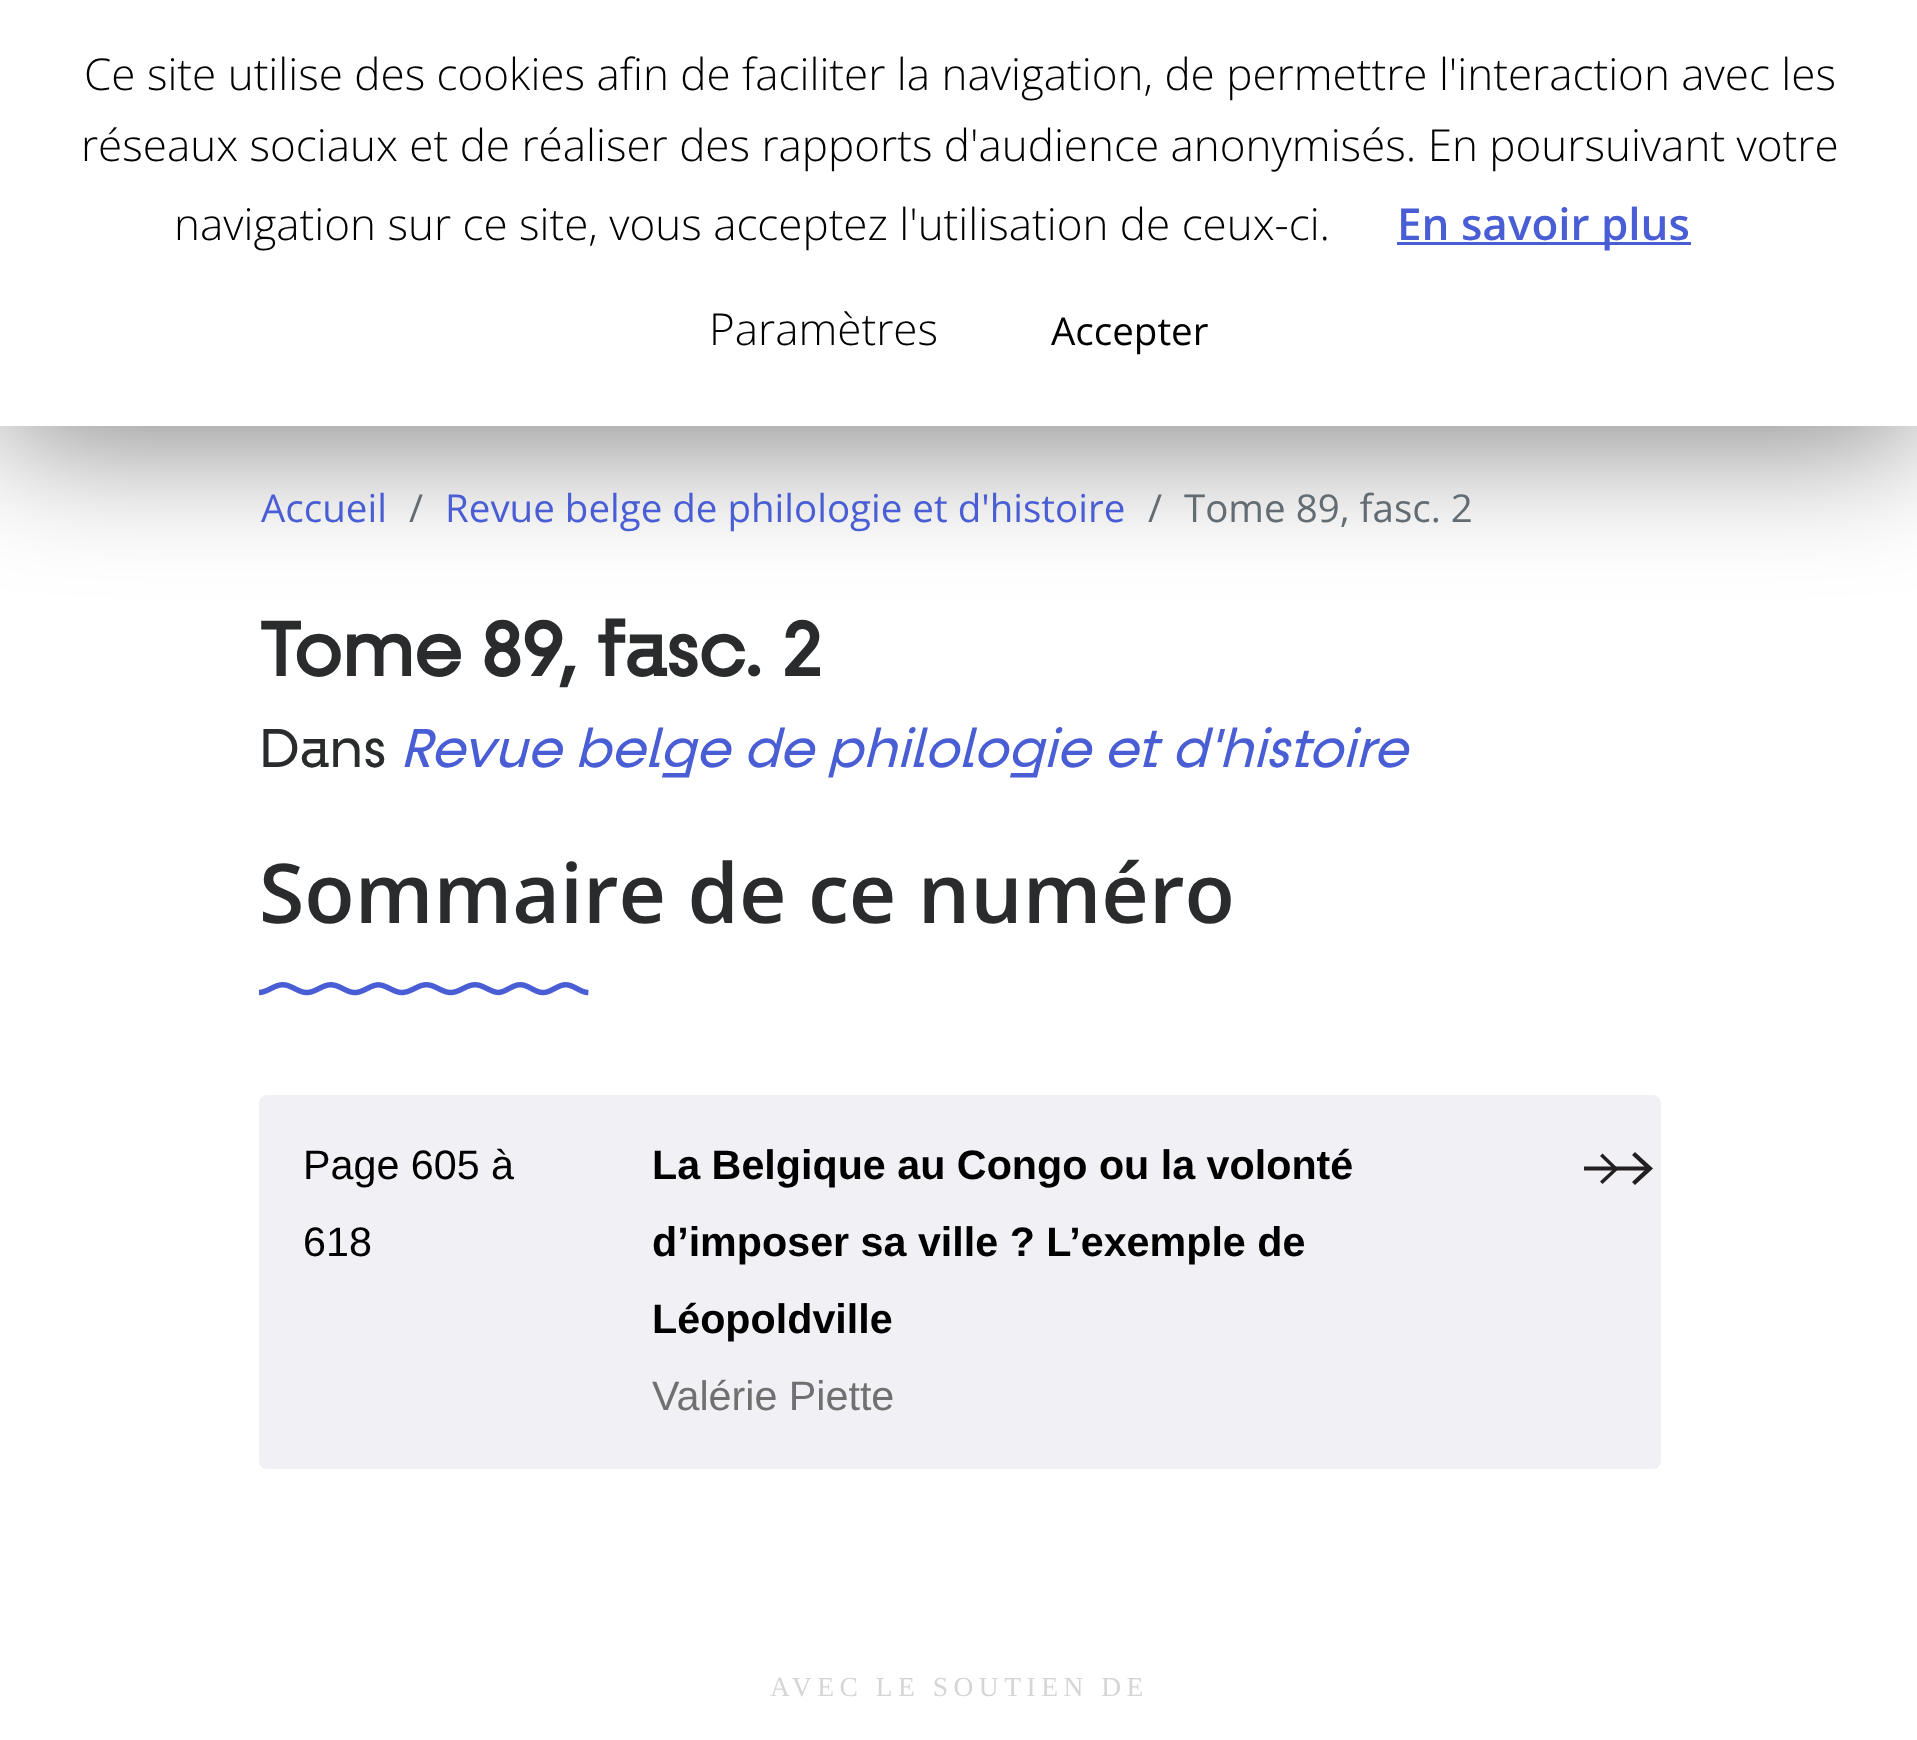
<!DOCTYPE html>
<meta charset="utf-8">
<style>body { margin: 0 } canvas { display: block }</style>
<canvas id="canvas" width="1917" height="1740"></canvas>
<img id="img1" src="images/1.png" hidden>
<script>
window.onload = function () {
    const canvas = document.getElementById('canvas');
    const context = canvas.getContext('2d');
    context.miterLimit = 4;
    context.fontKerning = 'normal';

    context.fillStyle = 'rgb(255, 255, 255)';
    context.fillRect(0, 0, 1917, 1740);
    context.fillStyle = 'rgba(0, 0, 0, 0.5)';
    context.filter = 'blur(69px)';
    context.beginPath();
    context.rect(0, 14, 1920, 426);
    context.fill();
    context.filter = 'none';
    context.fillStyle = 'rgb(255, 255, 255)';
    context.fillRect(0, 0, 1917, 426);
    context.fillStyle = 'rgb(73, 93, 212)';
    context.fillRect(1397, 242, 294, 3);
    context.drawImage(document.getElementById('img1'), 259, 982, 330, 14);
    context.fillStyle = 'rgb(241, 241, 245)';
    context.beginPath();
    context.roundRect(259, 1095, 1402, 374, 8);
    context.fill();
    context.fillStyle = 'rgb(35, 31, 32)';
    context.beginPath();
    context.moveTo(1602.5, 1153.5);
    context.lineTo(1600, 1156);
    context.lineTo(1613.5, 1169);
    context.lineTo(1600, 1181.5);
    context.lineTo(1602.5, 1184);
    context.lineTo(1618.5, 1169);
    context.closePath();
    context.fill();
    context.beginPath();
    context.moveTo(1648.5, 1168.5);
    context.lineTo(1584, 1168.5);
    context.strokeStyle = 'rgb(35, 31, 32)';
    context.lineWidth = 4;
    context.stroke();
    context.beginPath();
    context.moveTo(1635, 1152);
    context.lineTo(1632, 1155);
    context.lineTo(1646.5, 1168.5);
    context.lineTo(1632, 1182);
    context.lineTo(1635, 1185);
    context.lineTo(1653, 1168.5);
    context.closePath();
    context.fill();
    context.font = '300 44px Open Sans';
    context.fillStyle = 'rgb(0, 0, 0)';
    context.fillText('Ce site utilise des cookies afin de faciliter la navigation, de permettre l\'interaction avec les', 84, 90);
    context.fillText('réseaux sociaux et de réaliser des rapports d\'audience anonymisés. En poursuivant votre', 81, 161);
    context.fillText('navigation sur ce site, vous acceptez l\'utilisation de ceux-ci.', 174, 240);
    context.font = '600 44px Open Sans';
    context.fillStyle = 'rgb(73, 93, 212)';
    context.fillText('En savoir plus', 1397, 240);
    context.font = '300 44px Open Sans';
    context.fillStyle = 'rgb(0, 0, 0)';
    context.fillText('Paramètres', 709, 345);
    context.font = '38.5px Open Sans';
    context.fillText('Accepter', 1051, 345);
    context.fillStyle = 'rgb(73, 93, 212)';
    context.fillText('Accueil', 261, 522);
    context.fillStyle = 'rgb(99, 108, 114)';
    context.fillText('/', 409, 522);
    context.fillStyle = 'rgb(73, 93, 212)';
    context.fillText('Revue belge de philologie et d\'histoire', 445, 522);
    context.fillStyle = 'rgb(99, 108, 114)';
    context.fillText('/', 1148, 522);
    context.fillText('Tome 89, fasc. 2', 1184, 522);
    context.font = 'bold 77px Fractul';
    context.fillStyle = 'rgb(41, 43, 44)';
    context.fillText('Tome 89, fasc. 2', 259, 676);
    context.font = '55px Fractul';
    context.fillText('Dans', 259, 767);
    context.font = 'italic 55px Fractul';
    context.fillStyle = 'rgb(73, 93, 212)';
    context.fillText('Revue belge de philologie et d\'histoire', 400, 767);
    context.font = '600 82.5px Open Sans';
    context.fillStyle = 'rgb(41, 43, 44)';
    context.fillText('Sommaire de ce numéro', 259, 923);
    context.font = '41.25px Liberation Sans';
    context.fillStyle = 'rgb(0, 0, 0)';
    context.fillText('Page 605 à', 303, 1179);
    context.fillText('618', 303, 1256);
    context.font = 'bold 41.25px Liberation Sans';
    context.fillText('La Belgique au Congo ou la volonté', 652, 1179);
    context.fillText('d’imposer sa ville ? L’exemple de', 652, 1256);
    context.fillText('Léopoldville', 652, 1333);
    context.font = '41.25px Liberation Sans';
    context.fillStyle = 'rgb(112, 112, 112)';
    context.fillText('Valérie Piette', 652, 1410);
    context.letterSpacing = '5.5px';
    context.font = '27.5px Liberation Serif';
    context.fillStyle = 'rgb(213, 213, 213)';
    context.fillText('AVEC LE SOUTIEN DE', 770, 1696);
};
</script>
